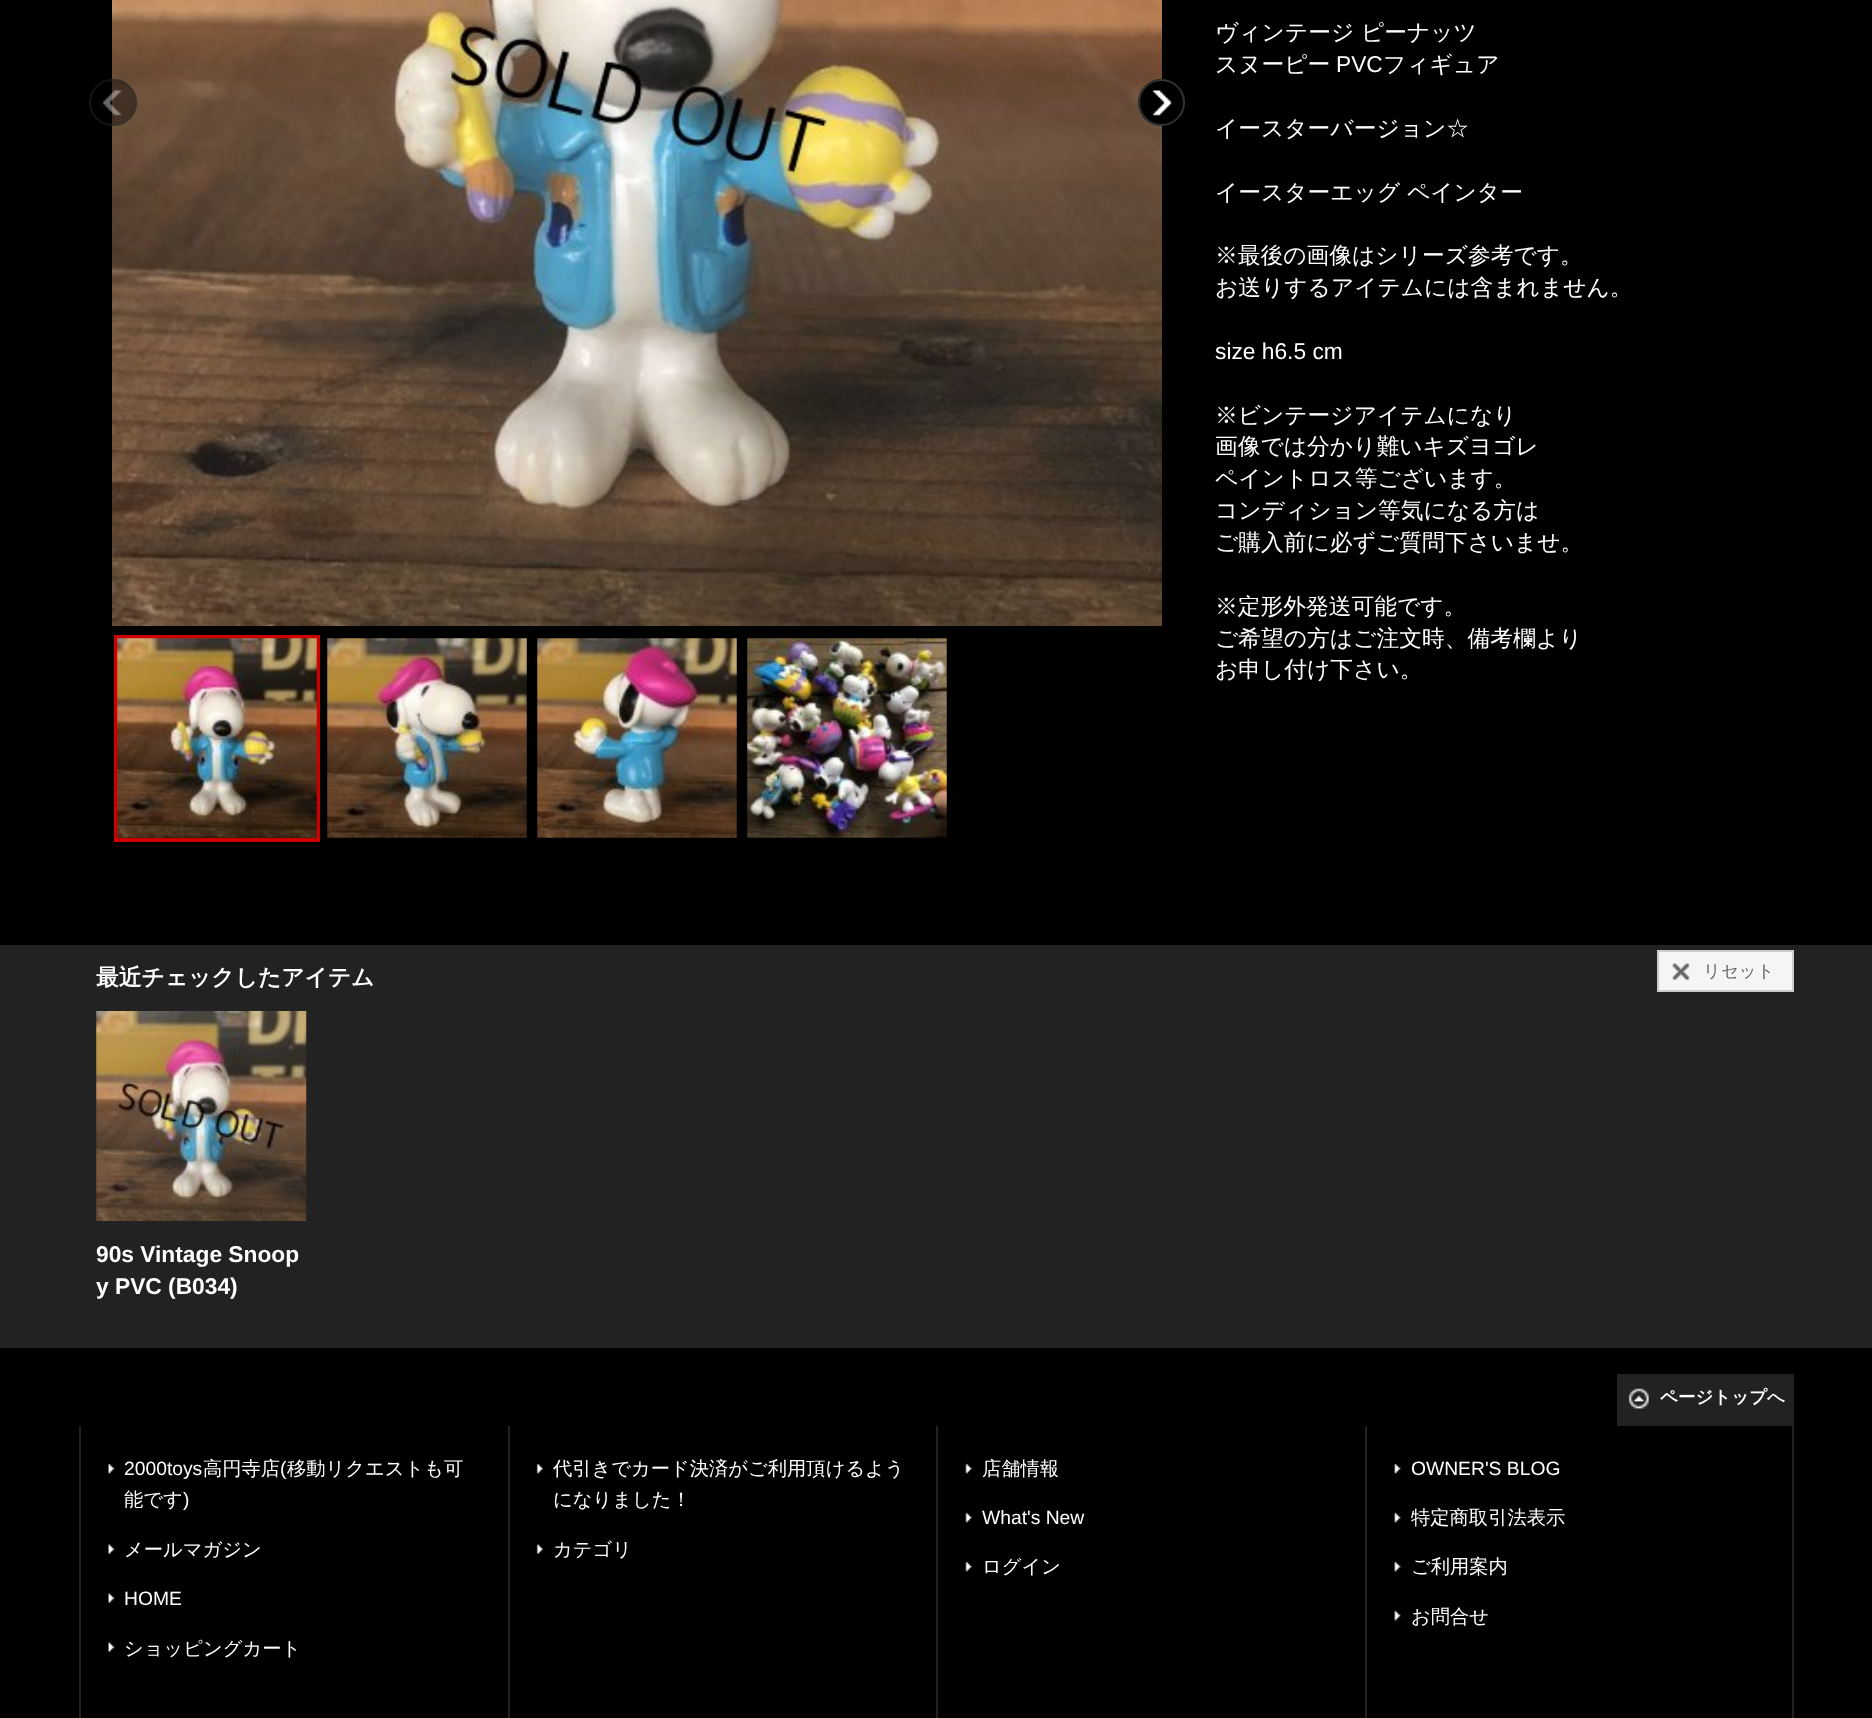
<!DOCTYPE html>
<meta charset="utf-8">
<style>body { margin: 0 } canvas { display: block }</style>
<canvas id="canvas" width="1872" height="1718"></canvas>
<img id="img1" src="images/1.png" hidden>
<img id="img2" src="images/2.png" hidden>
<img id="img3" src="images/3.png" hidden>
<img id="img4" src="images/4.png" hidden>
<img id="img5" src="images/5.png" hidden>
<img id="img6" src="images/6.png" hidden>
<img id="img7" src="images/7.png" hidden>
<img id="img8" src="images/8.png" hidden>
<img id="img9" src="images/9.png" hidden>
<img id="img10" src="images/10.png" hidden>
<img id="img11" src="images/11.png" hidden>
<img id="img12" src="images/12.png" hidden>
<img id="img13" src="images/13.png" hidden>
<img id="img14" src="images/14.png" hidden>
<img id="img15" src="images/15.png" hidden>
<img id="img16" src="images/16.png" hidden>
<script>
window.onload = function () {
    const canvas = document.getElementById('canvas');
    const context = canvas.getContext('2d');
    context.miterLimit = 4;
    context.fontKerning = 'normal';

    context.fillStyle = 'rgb(0, 0, 0)';
    context.fillRect(0, 0, 1872, 1718);
    context.drawImage(document.getElementById('img1'), 112, 0, 1050, 626);
    context.fillStyle = 'rgba(0, 0, 0, 0.4)';
    context.beginPath();
    context.roundRect(89, 79, 48, 47, 23.5);
    context.fill();
    context.drawImage(document.getElementById('img2'), 102, 90, 20, 26);
    context.beginPath();
    context.roundRect(90, 80, 46, 45, 22.5);
    context.strokeStyle = 'rgba(51, 51, 51, 0.4)';
    context.lineWidth = 2;
    context.stroke();
    context.fillStyle = 'rgb(0, 0, 0)';
    context.beginPath();
    context.arc(1161.5, 102.5, 23.5, 0, 2 * Math.PI);
    context.fill();
    context.drawImage(document.getElementById('img3'), 1152, 90, 20, 26);
    context.beginPath();
    context.arc(1161.5, 102.5, 22.5, 0, 2 * Math.PI);
    context.strokeStyle = 'rgb(51, 51, 51)';
    context.stroke();
    context.strokeStyle = 'rgb(204, 0, 0)';
    context.lineWidth = 4;
    context.strokeRect(116, 637, 202, 203);
    context.drawImage(document.getElementById('img4'), 117, 638, 200, 200);
    context.drawImage(document.getElementById('img5'), 327, 638, 200, 200);
    context.drawImage(document.getElementById('img6'), 537, 638, 200, 200);
    context.drawImage(document.getElementById('img7'), 747, 638, 200, 200);
    context.fillStyle = 'rgb(34, 34, 34)';
    context.fillRect(0, 945, 1872, 403);
    context.fillStyle = 'rgb(245, 245, 245)';
    context.fillRect(1659, 952, 133, 38);
    context.drawImage(document.getElementById('img8'), 1672, 963, 18, 17);
    context.strokeStyle = 'rgb(204, 204, 204)';
    context.lineWidth = 2;
    context.strokeRect(1658, 951, 135, 40);
    context.drawImage(document.getElementById('img9'), 96, 1011, 211, 210);
    context.fillStyle = 'rgb(34, 34, 34)';
    context.fillRect(1617, 1374, 177, 52);
    context.drawImage(document.getElementById('img10'), 1628, 1388, 21, 21);
    context.fillRect(79, 1426, 2, 292);
    context.drawImage(document.getElementById('img11'), 108, 1463, 7, 11);
    context.drawImage(document.getElementById('img12'), 108, 1544, 7, 10);
    context.drawImage(document.getElementById('img12'), 108, 1593, 7, 10);
    context.drawImage(document.getElementById('img12'), 108, 1642, 7, 10);
    context.fillRect(508, 1426, 2, 292);
    context.drawImage(document.getElementById('img13'), 536, 1463, 7, 11);
    context.drawImage(document.getElementById('img14'), 536, 1544, 7, 10);
    context.fillRect(936, 1426, 2, 292);
    context.drawImage(document.getElementById('img15'), 965, 1463, 7, 11);
    context.drawImage(document.getElementById('img15'), 965, 1512, 7, 11);
    context.drawImage(document.getElementById('img15'), 965, 1561, 7, 11);
    context.fillRect(1792, 1426, 2, 292);
    context.fillRect(1365, 1426, 2, 292);
    context.drawImage(document.getElementById('img16'), 1394, 1463, 7, 11);
    context.drawImage(document.getElementById('img16'), 1394, 1512, 7, 11);
    context.drawImage(document.getElementById('img16'), 1394, 1561, 7, 11);
    context.drawImage(document.getElementById('img16'), 1394, 1610, 7, 11);
    context.font = '500 22.75px WenQuanYi Zen Hei';
    context.fillStyle = 'rgb(255, 255, 255)';
    context.fillText('ヴィンテージ ピーナッツ', 1215, 40);
    context.fillText('スヌーピー', 1215, 72);
    context.font = '22.75px Liberation Sans';
    context.fillText('PVC', 1336, 72);
    context.font = '500 22.75px WenQuanYi Zen Hei';
    context.fillText('フィギュア', 1383, 72);
    context.fillText('イースターバージョン☆', 1215, 136);
    context.fillText('イースターエッグ ペインター', 1215, 200);
    context.fillText('※最後の画像はシリーズ参考です。', 1215, 263);
    context.fillText('お送りするアイテムには含まれません。', 1215, 295);
    context.font = '22.75px Liberation Sans';
    context.fillText('size h6.5 cm', 1215, 359);
    context.font = '500 22.75px WenQuanYi Zen Hei';
    context.fillText('※ビンテージアイテムになり', 1215, 423);
    context.fillText('画像では分かり難いキズヨゴレ', 1215, 454);
    context.fillText('ペイントロス等ございます。', 1215, 486);
    context.fillText('コンディション等気になる方は', 1215, 518);
    context.fillText('ご購入前に必ずご質問下さいませ。', 1215, 550);
    context.fillText('※定形外発送可能です。', 1215, 614);
    context.fillText('ご希望の方はご注文時、備考欄より', 1215, 646);
    context.fillText('お申し付け下さい。', 1215, 677);
    context.font = '500 17.5px WenQuanYi Zen Hei';
    context.fillStyle = 'rgb(102, 102, 102)';
    context.fillText('リセット', 1703, 977);
    context.font = 'bold 22.75px Liberation Sans';
    context.fillStyle = 'rgb(255, 255, 255)';
    context.fillText('90s Vintage Snoop', 96, 1262);
    context.fillText('y PVC (B034)', 96, 1294);
    context.font = 'bold 22.75px WenQuanYi Zen Hei';
    context.fillText('最近チェックしたアイテム', 96, 985);
    context.font = 'bold 17.5px WenQuanYi Zen Hei';
    context.fillText('ページトップへ', 1660, 1403);
    context.font = '19.3px Liberation Sans';
    context.fillText('2000toys', 124, 1475);
    context.font = '500 19.3px WenQuanYi Zen Hei';
    context.fillText('高円寺店', 203, 1475);
    context.font = '19.3px Liberation Sans';
    context.fillText('(', 280, 1475);
    context.font = '500 19.3px WenQuanYi Zen Hei';
    context.fillText('移動リクエストも可', 287, 1475);
    context.fillText('能です', 124, 1506);
    context.font = '19.3px Liberation Sans';
    context.fillText(')', 183, 1506);
    context.font = '500 19.3px WenQuanYi Zen Hei';
    context.fillText('メールマガジン', 124, 1556);
    context.font = '19.3px Liberation Sans';
    context.fillText('HOME', 124, 1605);
    context.font = '500 19.3px WenQuanYi Zen Hei';
    context.fillText('ショッピングカート', 124, 1655);
    context.fillText('代引きでカード決済がご利用頂けるよう', 553, 1475);
    context.fillText('になりました！', 553, 1506);
    context.fillText('カテゴリ', 553, 1556);
    context.fillText('店舗情報', 982, 1475);
    context.font = '19.3px Liberation Sans';
    context.fillText('What\'s New', 982, 1524);
    context.font = '500 19.3px WenQuanYi Zen Hei';
    context.fillText('ログイン', 982, 1573);
    context.font = '19.3px Liberation Sans';
    context.fillText('OWNER\'S BLOG', 1411, 1475);
    context.font = '500 19.3px WenQuanYi Zen Hei';
    context.fillText('特定商取引法表示', 1411, 1524);
    context.fillText('ご利用案内', 1411, 1573);
    context.fillText('お問合せ', 1411, 1623);
};
</script>
